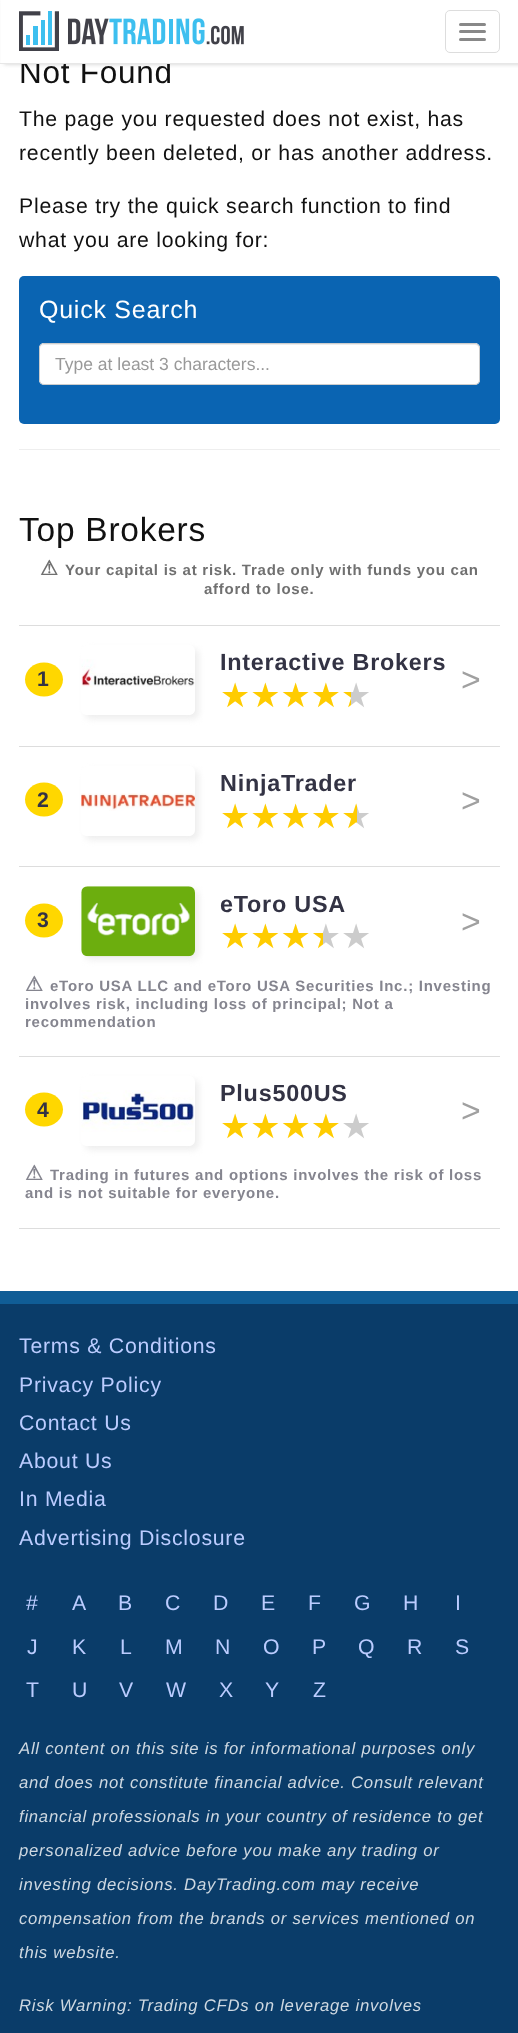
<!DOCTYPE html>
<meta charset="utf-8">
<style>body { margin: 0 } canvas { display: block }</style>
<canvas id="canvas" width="518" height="2033"></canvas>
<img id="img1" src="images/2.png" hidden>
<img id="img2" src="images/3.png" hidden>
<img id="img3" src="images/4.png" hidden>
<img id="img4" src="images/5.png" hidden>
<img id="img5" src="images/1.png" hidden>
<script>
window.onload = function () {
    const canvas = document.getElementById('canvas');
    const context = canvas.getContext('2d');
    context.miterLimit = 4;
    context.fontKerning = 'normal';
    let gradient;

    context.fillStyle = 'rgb(255, 255, 255)';
    context.fillRect(0, 0, 518, 2033);
    context.fillStyle = 'rgb(204, 204, 204)';
    context.filter = 'blur(2px)';
    context.beginPath();
    context.rect(4, 0, 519, 64);
    context.fill();
    context.filter = 'none';
    context.fillStyle = 'rgb(10, 100, 178)';
    context.beginPath();
    context.roundRect(19, 276, 481, 148, 5);
    context.fill();
    context.fillStyle = 'rgb(255, 255, 255)';
    context.beginPath();
    context.roundRect(39, 343, 441, 42, 5);
    context.fill();
    context.fillStyle = 'rgb(236, 236, 236)';
    context.beginPath();
    context.moveTo(44, 345);
    context.lineTo(475, 345);
    context.bezierCurveTo(477, 345, 479, 347, 479, 349);
    context.bezierCurveTo(479, 346, 478, 344, 475, 344);
    context.lineTo(44, 344);
    context.lineTo(42, 345);
    context.lineTo(41, 346);
    context.lineTo(40, 349);
    context.bezierCurveTo(40, 347, 42, 345, 44, 345);
    context.closePath();
    context.fill();
    context.beginPath();
    context.roundRect(39.5, 343.5, 440, 41, 4.5);
    context.strokeStyle = 'rgb(204, 204, 204)';
    context.stroke();
    context.fillStyle = 'rgb(238, 238, 238)';
    context.fillRect(19, 449, 481, 1);
    context.fillStyle = 'rgb(221, 221, 221)';
    context.fillRect(19, 1228, 481, 1);
    context.fillRect(19, 625, 481, 1);
    context.save();
    context.beginPath();
    context.moveTo(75, 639);
    context.lineTo(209, 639);
    context.lineTo(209, 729);
    context.lineTo(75, 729);
    context.closePath();
    context.moveTo(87, 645);
    context.lineTo(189, 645);
    context.bezierCurveTo(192.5, 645, 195, 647.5, 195, 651);
    context.lineTo(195, 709);
    context.bezierCurveTo(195, 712.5, 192.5, 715, 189, 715);
    context.lineTo(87, 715);
    context.bezierCurveTo(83.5, 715, 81, 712.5, 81, 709);
    context.lineTo(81, 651);
    context.bezierCurveTo(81, 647.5, 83.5, 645, 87, 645);
    context.closePath();
    context.clip('evenodd');
    context.fillStyle = 'rgb(238, 238, 238)';
    context.filter = 'blur(3px)';
    context.beginPath();
    context.roundRect(85, 649, 114, 70, 6);
    context.fill();
    context.filter = 'none';
    context.restore();
    context.fillStyle = 'rgb(255, 215, 0)';
    context.beginPath();
    context.ellipse(44, 679.5, 19, 17, 0, 0, 2 * Math.PI);
    context.fill();
    context.drawImage(document.getElementById('img1'), 81, 659, 114, 55);
    context.fillStyle = 'rgb(221, 221, 221)';
    context.fillRect(19, 746, 481, 1);
    context.fillStyle = 'rgb(255, 215, 0)';
    context.beginPath();
    context.ellipse(44, 799.5, 19, 17, 0, 0, 2 * Math.PI);
    context.fill();
    context.save();
    context.beginPath();
    context.moveTo(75, 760);
    context.lineTo(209, 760);
    context.lineTo(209, 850);
    context.lineTo(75, 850);
    context.closePath();
    context.moveTo(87, 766);
    context.lineTo(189, 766);
    context.bezierCurveTo(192.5, 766, 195, 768.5, 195, 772);
    context.lineTo(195, 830);
    context.bezierCurveTo(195, 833.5, 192.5, 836, 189, 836);
    context.lineTo(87, 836);
    context.bezierCurveTo(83.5, 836, 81, 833.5, 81, 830);
    context.lineTo(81, 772);
    context.bezierCurveTo(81, 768.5, 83.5, 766, 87, 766);
    context.closePath();
    context.clip('evenodd');
    context.fillStyle = 'rgb(238, 238, 238)';
    context.filter = 'blur(3px)';
    context.beginPath();
    context.roundRect(85, 770, 114, 70, 6);
    context.fill();
    context.filter = 'none';
    context.restore();
    context.drawImage(document.getElementById('img2'), 81, 793, 114, 18);
    context.fillStyle = 'rgb(221, 221, 221)';
    context.fillRect(19, 866, 481, 1);
    context.fillStyle = 'rgb(238, 238, 238)';
    context.filter = 'blur(3px)';
    context.beginPath();
    context.roundRect(85, 890, 114, 70, 6);
    context.fill();
    context.filter = 'none';
    context.fillStyle = 'rgb(255, 215, 0)';
    context.beginPath();
    context.ellipse(44, 920.5, 19, 17, 0, 0, 2 * Math.PI);
    context.fill();
    context.drawImage(document.getElementById('img3'), 81, 886, 114, 71);
    context.fillStyle = 'rgb(221, 221, 221)';
    context.fillRect(19, 1056, 481, 1);
    context.save();
    context.beginPath();
    context.moveTo(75, 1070);
    context.lineTo(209, 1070);
    context.lineTo(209, 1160);
    context.lineTo(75, 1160);
    context.closePath();
    context.moveTo(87, 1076);
    context.lineTo(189, 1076);
    context.bezierCurveTo(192.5, 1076, 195, 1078.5, 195, 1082);
    context.lineTo(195, 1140);
    context.bezierCurveTo(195, 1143.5, 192.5, 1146, 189, 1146);
    context.lineTo(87, 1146);
    context.bezierCurveTo(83.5, 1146, 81, 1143.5, 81, 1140);
    context.lineTo(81, 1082);
    context.bezierCurveTo(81, 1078.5, 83.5, 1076, 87, 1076);
    context.closePath();
    context.clip('evenodd');
    context.fillStyle = 'rgb(238, 238, 238)';
    context.filter = 'blur(3px)';
    context.beginPath();
    context.roundRect(85, 1080, 114, 70, 6);
    context.fill();
    context.filter = 'none';
    context.restore();
    context.fillStyle = 'rgb(255, 215, 0)';
    context.beginPath();
    context.ellipse(44, 1109.5, 19, 17, 0, 0, 2 * Math.PI);
    context.fill();
    context.drawImage(document.getElementById('img4'), 81, 1090, 113, 42);
    context.fillStyle = 'rgb(10, 60, 105)';
    context.fillRect(0, 1304, 518, 729);
    context.fillStyle = 'rgb(16, 93, 150)';
    context.fillRect(0, 1291, 518, 13);
    context.letterSpacing = '0.75px';
    context.font = '31.5px Liberation Sans';
    context.fillStyle = 'rgb(17, 17, 17)';
    context.fillText('Not Found', 19, 83);
    context.fillStyle = 'rgb(255, 255, 255)';
    context.fillRect(1, 0, 517, 63);
    context.beginPath();
    context.roundRect(445.5, 10.5, 54, 42, 4.5);
    context.strokeStyle = 'rgb(221, 221, 221)';
    context.stroke();
    context.fillStyle = 'rgb(136, 136, 136)';
    context.beginPath();
    context.roundRect(459, 38, 27, 3, 1.5);
    context.fill();
    context.beginPath();
    context.roundRect(459, 30, 27, 3, 1.5);
    context.fill();
    context.beginPath();
    context.roundRect(459, 23, 27, 3, 1.5);
    context.fill();
    context.drawImage(document.getElementById('img5'), 19, 11, 225, 40);
    context.fillStyle = 'rgb(231, 231, 231)';
    context.fillRect(0, 63, 518, 1);
    context.font = '21.25px Liberation Sans';
    context.fillStyle = 'rgb(17, 17, 17)';
    context.fillText('The page you requested does not exist, has', 19, 126);
    context.fillText('recently been deleted, or has another address.', 19, 160);
    context.fillText('Please try the quick search function to find', 19, 213);
    context.fillText('what you are looking for:', 19, 247);
    context.font = '25px Liberation Sans';
    context.fillStyle = 'rgb(255, 255, 255)';
    context.fillText('Quick Search', 39, 318);
    context.letterSpacing = '0px';
    context.font = '17.5px Liberation Sans';
    context.fillStyle = 'rgb(153, 153, 153)';
    context.fillText('Type at least 3 characters...', 55, 370);
    context.letterSpacing = '0.75px';
    context.font = '33.5px Liberation Sans';
    context.fillStyle = 'rgb(17, 17, 17)';
    context.fillText('Top Brokers', 19, 541);
    context.font = 'bold 20px DejaVu Sans';
    context.fillStyle = 'rgb(112, 112, 112)';
    context.fillText('⚠', 40, 575);
    context.font = 'bold 15px Liberation Sans';
    context.fillText('Your capital is at risk. Trade only with funds you can', 65, 575);
    context.fillText('afford to lose.', 204, 594);
    context.font = 'bold 21.25px Liberation Sans';
    context.fillStyle = 'rgb(51, 51, 68)';
    context.fillText('1', 37, 686);
    context.font = 'bold 23.4px Liberation Sans';
    context.fillText('Interactive Brokers', 220, 670);
    context.letterSpacing = '0px';
    context.font = '33.75px DejaVu Sans';
    gradient = context.createLinearGradient(220, 695, 372, 695);
    gradient.addColorStop(0.86, 'rgb(255, 204, 0)');
    gradient.addColorStop(0.86, 'rgb(204, 204, 204)');
    context.fillStyle = gradient;
    context.fillText('★★★★★', 220, 707);
    context.letterSpacing = '0.75px';
    context.font = '33.75px Liberation Sans';
    context.fillStyle = 'rgb(160, 160, 160)';
    context.fillText('>', 461, 691);
    context.font = 'bold 21.25px Liberation Sans';
    context.fillStyle = 'rgb(51, 51, 68)';
    context.fillText('2', 37, 807);
    context.font = 'bold 23.4px Liberation Sans';
    context.fillText('NinjaTrader', 220, 791);
    context.letterSpacing = '0px';
    context.font = '33.75px DejaVu Sans';
    gradient = context.createLinearGradient(220, 816, 372, 816);
    gradient.addColorStop(0.9, 'rgb(255, 204, 0)');
    gradient.addColorStop(0.9, 'rgb(204, 204, 204)');
    context.fillStyle = gradient;
    context.fillText('★★★★★', 220, 828);
    context.letterSpacing = '0.75px';
    context.font = '33.75px Liberation Sans';
    context.fillStyle = 'rgb(160, 160, 160)';
    context.fillText('>', 461, 812);
    context.font = 'bold 21.25px Liberation Sans';
    context.fillStyle = 'rgb(51, 51, 68)';
    context.fillText('3', 37, 927);
    context.font = 'bold 23.4px Liberation Sans';
    context.fillText('eToro USA', 220, 912);
    context.letterSpacing = '0px';
    context.font = '33.75px DejaVu Sans';
    gradient = context.createLinearGradient(220, 937, 372, 937);
    gradient.addColorStop(0.68, 'rgb(255, 204, 0)');
    gradient.addColorStop(0.68, 'rgb(204, 204, 204)');
    context.fillStyle = gradient;
    context.fillText('★★★★★', 220, 948);
    context.letterSpacing = '0.75px';
    context.font = 'bold 20px DejaVu Sans';
    context.fillStyle = 'rgb(133, 133, 143)';
    context.fillText('⚠', 25, 991);
    context.font = 'bold 15px Liberation Sans';
    context.fillText('eToro USA LLC and eToro USA Securities Inc.; Investing', 50, 991);
    context.fillText('involves risk, including loss of principal; Not a', 25, 1009);
    context.fillText('recommendation', 25, 1027);
    context.font = '33.75px Liberation Sans';
    context.fillStyle = 'rgb(160, 160, 160)';
    context.fillText('>', 461, 933);
    context.font = 'bold 21.25px Liberation Sans';
    context.fillStyle = 'rgb(51, 51, 68)';
    context.fillText('4', 37, 1117);
    context.font = 'bold 23.4px Liberation Sans';
    context.fillText('Plus500US', 220, 1101);
    context.letterSpacing = '0px';
    context.font = '33.75px DejaVu Sans';
    gradient = context.createLinearGradient(220, 1126, 372, 1126);
    gradient.addColorStop(0.8, 'rgb(255, 204, 0)');
    gradient.addColorStop(0.8, 'rgb(204, 204, 204)');
    context.fillStyle = gradient;
    context.fillText('★★★★★', 220, 1138);
    context.letterSpacing = '0.75px';
    context.font = 'bold 20px DejaVu Sans';
    context.fillStyle = 'rgb(133, 133, 143)';
    context.fillText('⚠', 25, 1180);
    context.font = 'bold 15px Liberation Sans';
    context.fillText('Trading in futures and options involves the risk of loss', 50, 1180);
    context.fillText('and is not suitable for everyone.', 25, 1198);
    context.font = '33.75px Liberation Sans';
    context.fillStyle = 'rgb(160, 160, 160)';
    context.fillText('>', 461, 1122);
    context.font = '21.25px Liberation Sans';
    context.fillStyle = 'rgb(187, 204, 255)';
    context.fillText('Terms & Conditions', 19, 1353);
    context.fillText('Privacy Policy', 19, 1392);
    context.fillText('Contact Us', 19, 1430);
    context.fillText('About Us', 19, 1468);
    context.fillText('In Media', 19, 1506);
    context.fillText('Advertising Disclosure', 19, 1545);
    context.fillText('#', 26, 1610);
    context.fillText('A', 72, 1610);
    context.fillText('B', 118, 1610);
    context.fillText('C', 165, 1610);
    context.fillText('D', 213, 1610);
    context.fillText('E', 261, 1610);
    context.fillText('F', 308, 1610);
    context.fillText('G', 354, 1610);
    context.fillText('H', 403, 1610);
    context.fillText('I', 455, 1610);
    context.fillText('J', 27, 1654);
    context.fillText('K', 72, 1654);
    context.fillText('L', 120, 1654);
    context.fillText('M', 165, 1654);
    context.fillText('N', 215, 1654);
    context.fillText('O', 263, 1654);
    context.fillText('P', 312, 1654);
    context.fillText('Q', 358, 1654);
    context.fillText('R', 407, 1654);
    context.fillText('S', 455, 1654);
    context.fillText('T', 26, 1697);
    context.fillText('U', 72, 1697);
    context.fillText('V', 119, 1697);
    context.fillText('W', 166, 1697);
    context.fillText('X', 219, 1697);
    context.fillText('Y', 265, 1697);
    context.fillText('Z', 313, 1697);
    context.font = 'italic 16.7px Liberation Sans';
    context.fillStyle = 'rgb(206, 216, 225)';
    context.fillText('All content on this site is for informational purposes only', 19, 1754);
    context.fillText('and does not constitute financial advice. Consult relevant', 19, 1788);
    context.fillText('financial professionals in your country of residence to get', 19, 1822);
    context.fillText('personalized advice before you make any trading or', 19, 1856);
    context.fillText('investing decisions. DayTrading.com may receive', 19, 1890);
    context.fillText('compensation from the brands or services mentioned on', 19, 1924);
    context.fillText('this website.', 19, 1958);
    context.fillText('Risk Warning: Trading CFDs on leverage involves', 19, 2011);
};
</script>
